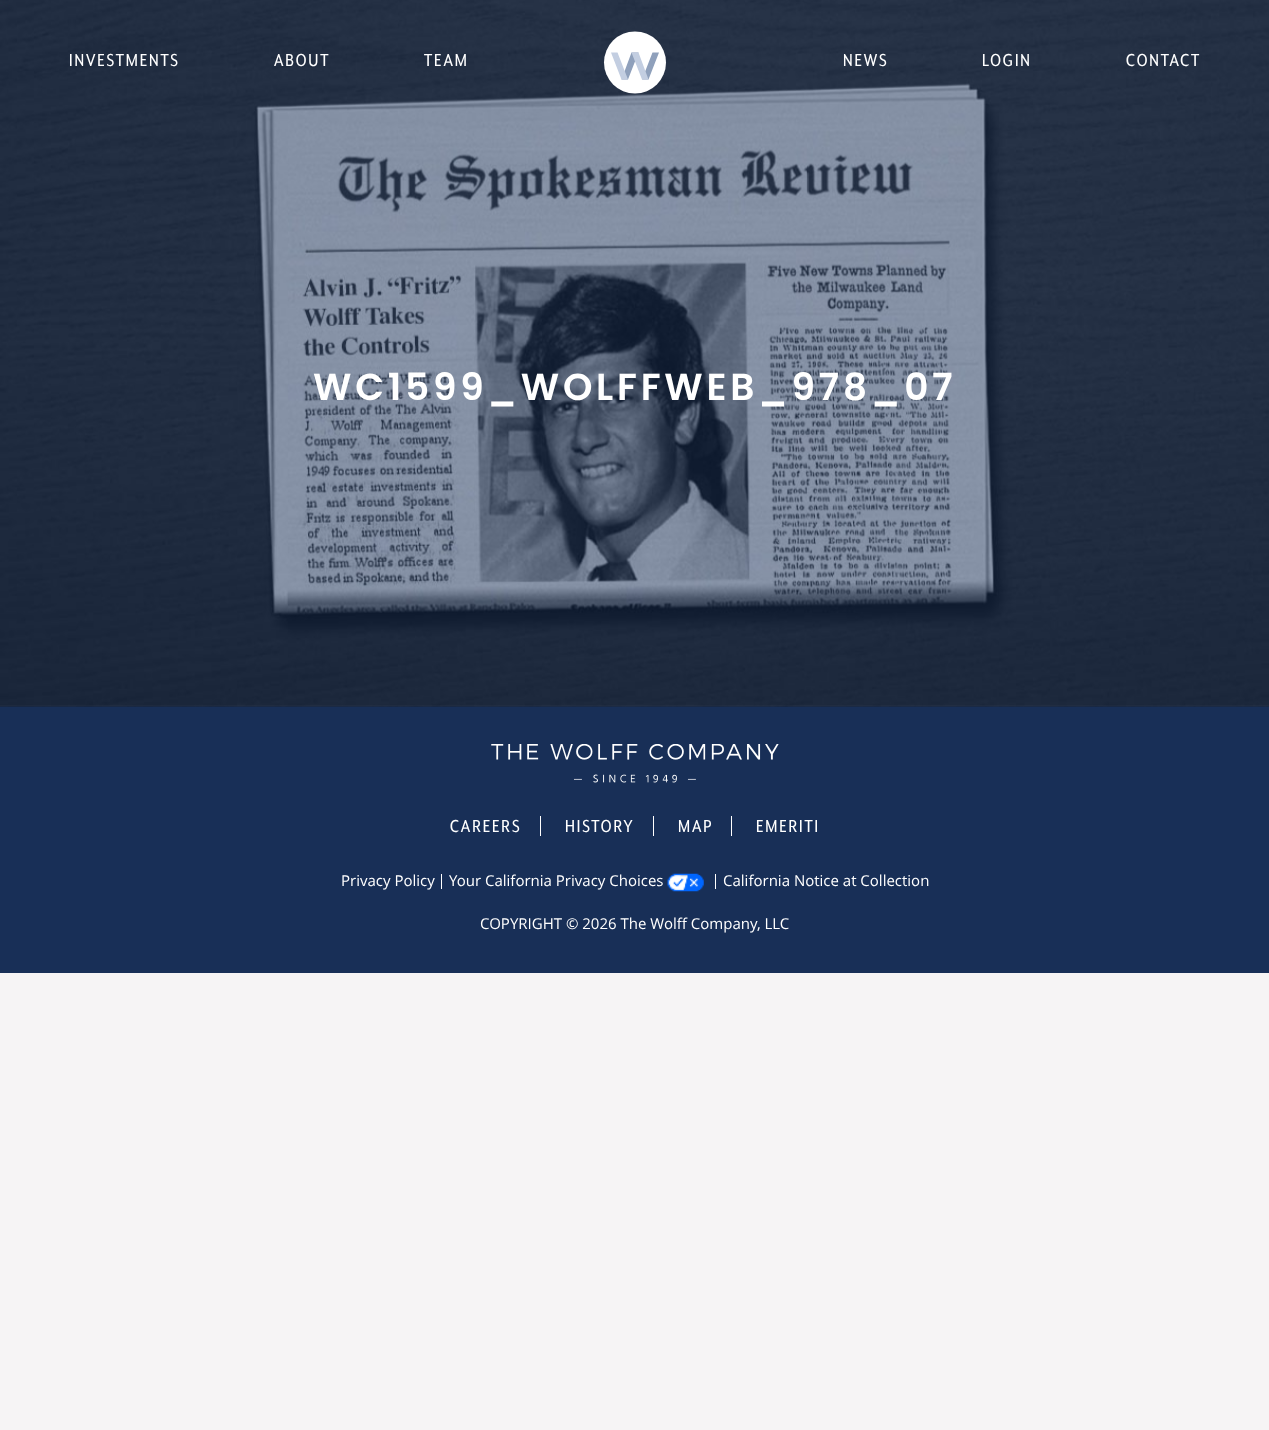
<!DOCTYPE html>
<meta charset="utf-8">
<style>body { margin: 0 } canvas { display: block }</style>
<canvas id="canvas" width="1269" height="1430"></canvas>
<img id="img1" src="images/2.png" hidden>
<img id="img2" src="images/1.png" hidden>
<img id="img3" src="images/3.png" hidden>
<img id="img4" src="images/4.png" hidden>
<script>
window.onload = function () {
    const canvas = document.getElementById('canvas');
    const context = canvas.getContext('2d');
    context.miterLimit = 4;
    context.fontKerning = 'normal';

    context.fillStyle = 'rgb(246, 244, 245)';
    context.fillRect(0, 0, 1269, 1430);
    context.drawImage(document.getElementById('img1'), 0, 705, 847, 1);
    context.fillStyle = 'rgb(24, 47, 87)';
    context.fillRect(0, 706, 1269, 267);
    context.drawImage(document.getElementById('img2'), 0, 0, 1269, 707);
    context.fillStyle = 'rgba(24, 47, 87, 0.5)';
    context.fillRect(0, 0, 1269, 706);
    context.fillStyle = 'rgb(255, 255, 255)';
    context.beginPath();
    context.arc(635, 62.5, 31, 0, 2 * Math.PI);
    context.fill();
    context.fillStyle = 'rgb(143, 160, 187)';
    context.beginPath();
    context.moveTo(659, 52.5);
    context.lineTo(652.5, 52.5);
    context.lineTo(642, 79.5);
    context.lineTo(648.5, 79.5);
    context.closePath();
    context.moveTo(638.5, 52.5);
    context.lineTo(631.5, 52.5);
    context.lineTo(621.5, 79.5);
    context.lineTo(628, 79.5);
    context.closePath();
    context.fill();
    context.fillStyle = 'rgb(195, 206, 225)';
    context.beginPath();
    context.moveTo(631.5, 52.5);
    context.lineTo(638.5, 52.5);
    context.lineTo(648.5, 79.5);
    context.lineTo(642, 79.5);
    context.closePath();
    context.moveTo(611, 52.5);
    context.lineTo(617.5, 52.5);
    context.lineTo(628, 79.5);
    context.lineTo(621.5, 79.5);
    context.closePath();
    context.fill();
    context.drawImage(document.getElementById('img3'), 491, 744, 288, 39);
    context.fillStyle = 'rgb(255, 255, 255)';
    context.fillRect(540, 816, 1, 20);
    context.fillRect(653, 816, 1, 20);
    context.fillRect(731, 816, 1, 20);
    context.fillRect(441, 874, 1, 15);
    context.fillRect(715, 874, 1, 15);
    context.drawImage(document.getElementById('img4'), 667, 873, 37, 19);
    context.letterSpacing = '1.9px';
    context.font = '20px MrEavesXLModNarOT';
    context.fillText('INVESTMENTS', 69, 66);
    context.fillText('ABOUT', 274, 66);
    context.fillText('TEAM', 424, 66);
    context.fillText('NEWS', 843, 66);
    context.fillText('LOGIN', 982, 66);
    context.fillText('CONTACT', 1126, 66);
    context.letterSpacing = '3.75px';
    context.font = '600 37.5px Poppins';
    context.fillText('WC1599_WOLFFWEB_978_07', 313, 400);
    context.letterSpacing = '1.9px';
    context.font = '20px MrEavesXLModNarOT';
    context.fillText('CAREERS', 450, 832);
    context.fillText('HISTORY', 565, 832);
    context.fillText('MAP', 678, 832);
    context.fillText('EMERITI', 756, 832);
    context.letterSpacing = '0px';
    context.font = '15px Open Sans';
    context.fillText('Privacy Policy', 341, 886);
    context.fillText('Your California Privacy Choices', 449, 886);
    context.fillText('California Notice at Collection', 723, 886);
    context.fillText('COPYRIGHT © 2026 The Wolff Company, LLC', 480, 929);
};
</script>
